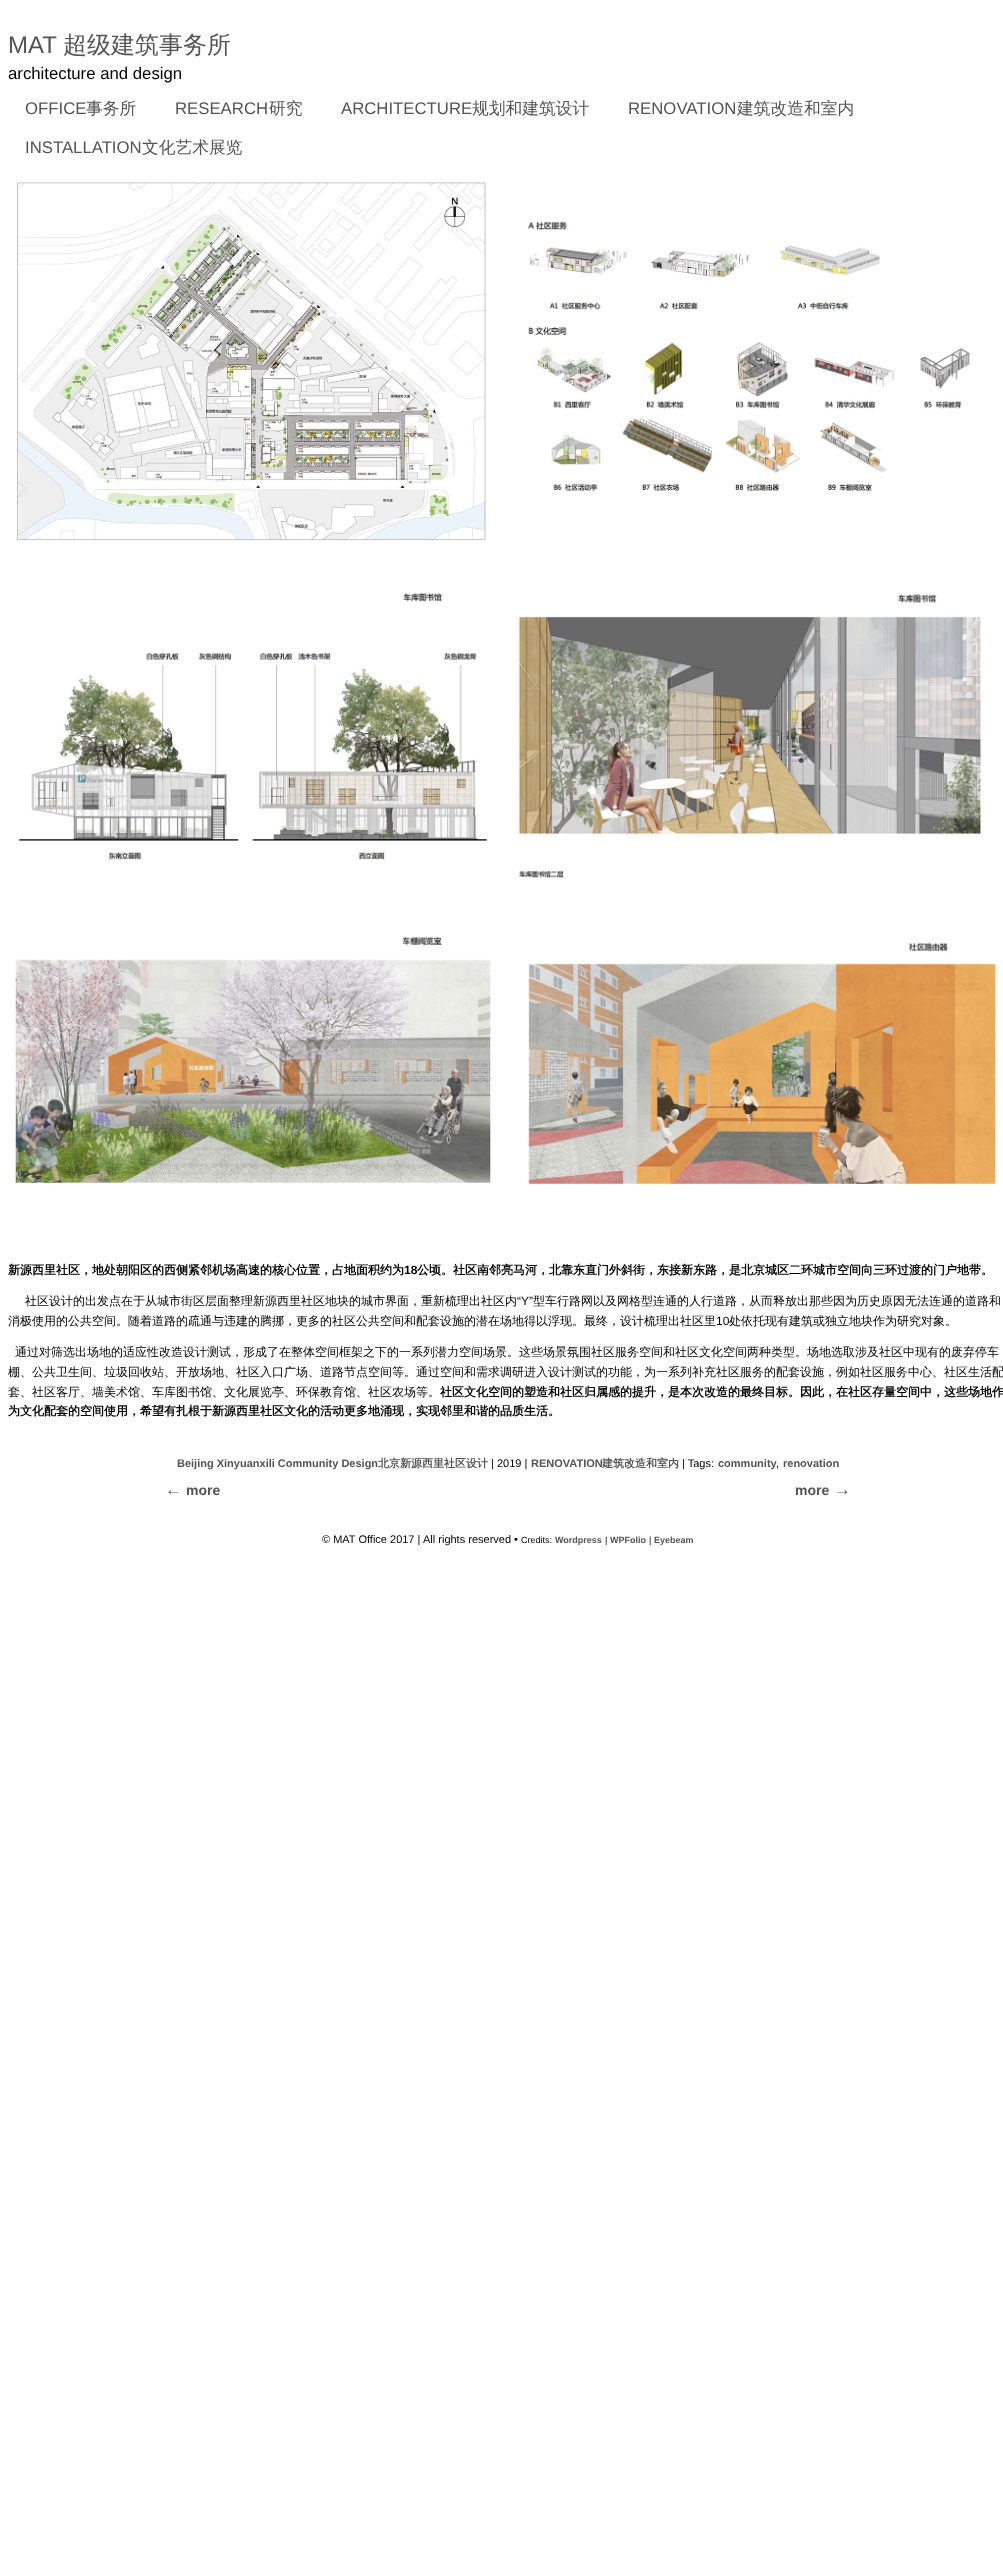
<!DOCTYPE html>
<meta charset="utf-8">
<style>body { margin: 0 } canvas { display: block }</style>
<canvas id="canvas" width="1003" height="2572"></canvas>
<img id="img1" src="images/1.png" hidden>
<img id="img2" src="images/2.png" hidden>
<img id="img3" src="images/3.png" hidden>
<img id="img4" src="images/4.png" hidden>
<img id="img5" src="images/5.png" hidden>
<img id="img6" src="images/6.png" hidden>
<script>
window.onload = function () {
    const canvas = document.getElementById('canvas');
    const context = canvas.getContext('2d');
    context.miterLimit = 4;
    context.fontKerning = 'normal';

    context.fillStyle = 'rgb(255, 255, 255)';
    context.fillRect(0, 0, 1003, 2572);
    context.drawImage(document.getElementById('img1'), 17, 182, 469, 360);
    context.drawImage(document.getElementById('img2'), 528, 221, 442, 270);
    context.drawImage(document.getElementById('img3'), 18, 592, 470, 268);
    context.drawImage(document.getElementById('img4'), 518, 594, 464, 285);
    context.drawImage(document.getElementById('img5'), 15, 936, 476, 247);
    context.drawImage(document.getElementById('img6'), 528, 942, 469, 242);
    context.font = '24px Liberation Sans';
    context.fillStyle = 'rgb(84, 84, 84)';
    context.fillText('MAT', 8, 53);
    context.font = '500 24px WenQuanYi Zen Hei';
    context.fillText('超级建筑事务所', 63, 53);
    context.font = '16.75px Liberation Sans';
    context.fillStyle = 'rgb(0, 0, 0)';
    context.fillText('architecture and design', 8, 79);
    context.fillStyle = 'rgb(84, 84, 84)';
    context.fillText('OFFICE', 25, 114);
    context.font = '500 16.75px WenQuanYi Zen Hei';
    context.fillText('事务所', 86, 114);
    context.font = '16.75px Liberation Sans';
    context.fillText('RESEARCH', 175, 114);
    context.font = '500 16.75px WenQuanYi Zen Hei';
    context.fillText('研究', 269, 114);
    context.font = '16.75px Liberation Sans';
    context.fillText('ARCHITECTURE', 341, 114);
    context.font = '500 16.75px WenQuanYi Zen Hei';
    context.fillText('规划和建筑设计', 472, 114);
    context.font = '16.75px Liberation Sans';
    context.fillText('RENOVATION', 628, 114);
    context.font = '500 16.75px WenQuanYi Zen Hei';
    context.fillText('建筑改造和室内', 737, 114);
    context.font = '16.75px Liberation Sans';
    context.fillText('INSTALLATION', 25, 153);
    context.font = '500 16.75px WenQuanYi Zen Hei';
    context.fillText('文化艺术展览', 142, 153);
    context.font = 'bold 12px WenQuanYi Zen Hei';
    context.fillStyle = 'rgb(0, 0, 0)';
    context.fillText('新源西里社区，地处朝阳区的西侧紧邻机场高速的核心位置，占地面积约为', 8, 1274);
    context.font = 'bold 12px Liberation Sans';
    context.fillText('18', 404, 1274);
    context.font = 'bold 12px WenQuanYi Zen Hei';
    context.fillText('公顷。社区南邻亮马河，北靠东直门外斜街，东接新东路，是北京城区二环城市空间向三环过渡的门户地带。', 417, 1274);
    context.font = '500 12px WenQuanYi Zen Hei';
    context.fillText('社区设计的出发点在于从城市街区层面整理新源西里社区地块的城市界面，重新梳理出社区内', 25, 1305);
    context.font = '12px Liberation Sans';
    context.fillText('“Y”', 517, 1305);
    context.font = '500 12px WenQuanYi Zen Hei';
    context.fillText('型车行路网以及网格型连通的人行道路，从而释放出那些因为历史原因无法连通的道路和', 533, 1305);
    context.fillText('消极使用的公共空间。随着道路的疏通与违建的腾挪，更多的社区公共空间和配套设施的潜在场地得以浮现。最终，设计梳理出社区里', 8, 1325);
    context.font = '12px Liberation Sans';
    context.fillText('10', 716, 1325);
    context.font = '500 12px WenQuanYi Zen Hei';
    context.fillText('处依托现有建筑或独立地块作为研究对象。', 729, 1325);
    context.fillText('通过对筛选出场地的适应性改造设计测试，形成了在整体空间框架之下的一系列潜力空间场景。这些场景氛围社区服务空间和社区文化空间两种类型。场地选取涉及社区中现有的废弃停车', 15, 1356);
    context.fillText('棚、公共卫生间、垃圾回收站、开放场地、社区入口广场、道路节点空间等。通过空间和需求调研进入设计测试的功能，为一系列补充社区服务的配套设施，例如社区服务中心、社区生活配', 8, 1376);
    context.fillText('套、社区客厅、墙美术馆、车库图书馆、文化展览亭、环保教育馆、社区农场等。', 8, 1396);
    context.font = 'bold 12px WenQuanYi Zen Hei';
    context.fillText('社区文化空间的塑造和社区归属感的提升，是本次改造的最终目标。因此，在社区存量空间中，这些场地作', 440, 1396);
    context.fillText('为文化配套的空间使用，希望有扎根于新源西里社区文化的活动更多地涌现，实现邻里和谐的品质生活。', 8, 1415);
    context.font = 'bold 11px Liberation Sans';
    context.fillStyle = 'rgb(84, 84, 84)';
    context.fillText('Beijing Xinyuanxili Community Design', 177, 1467);
    context.font = 'bold 11px WenQuanYi Zen Hei';
    context.fillText('北京新源西里社区设计', 378, 1467);
    context.font = '11px Liberation Sans';
    context.fillStyle = 'rgb(0, 0, 0)';
    context.fillText('| 2019 |', 491, 1467);
    context.font = 'bold 11px Liberation Sans';
    context.fillStyle = 'rgb(84, 84, 84)';
    context.fillText('RENOVATION', 531, 1467);
    context.font = 'bold 11px WenQuanYi Zen Hei';
    context.fillText('建筑改造和室内', 602, 1467);
    context.font = '11px Liberation Sans';
    context.fillStyle = 'rgb(0, 0, 0)';
    context.fillText('| Tags:', 682, 1467);
    context.font = 'bold 11px Liberation Sans';
    context.fillStyle = 'rgb(84, 84, 84)';
    context.fillText('community', 718, 1467);
    context.font = '11px Liberation Sans';
    context.fillStyle = 'rgb(0, 0, 0)';
    context.fillText(',', 776, 1467);
    context.font = 'bold 11px Liberation Sans';
    context.fillStyle = 'rgb(84, 84, 84)';
    context.fillText('renovation', 783, 1467);
    context.font = 'bold 16.75px Liberation Sans';
    context.fillText('←', 165, 1495);
    context.font = 'bold 14px Liberation Sans';
    context.fillText('more', 186, 1495);
    context.fillText('more', 795, 1495);
    context.font = 'bold 16.75px Liberation Sans';
    context.fillText('→', 834, 1495);
    context.font = '11px Liberation Sans';
    context.fillStyle = 'rgb(0, 0, 0)';
    context.fillText('© MAT Office 2017 |', 322, 1543);
    context.fillText('All rights reserved •', 423, 1543);
    context.font = '9px Liberation Sans';
    context.fillText('Credits:', 521, 1543);
    context.font = 'bold 9px Liberation Sans';
    context.fillStyle = 'rgb(84, 84, 84)';
    context.fillText('Wordpress', 555, 1543);
    context.font = '9px Liberation Sans';
    context.fillStyle = 'rgb(0, 0, 0)';
    context.fillText('|', 605, 1543);
    context.font = 'bold 9px Liberation Sans';
    context.fillStyle = 'rgb(84, 84, 84)';
    context.fillText('WPFolio', 610, 1543);
    context.font = '9px Liberation Sans';
    context.fillStyle = 'rgb(0, 0, 0)';
    context.fillText('|', 649, 1543);
    context.font = 'bold 9px Liberation Sans';
    context.fillStyle = 'rgb(84, 84, 84)';
    context.fillText('Eyebeam', 654, 1543);
};
</script>
